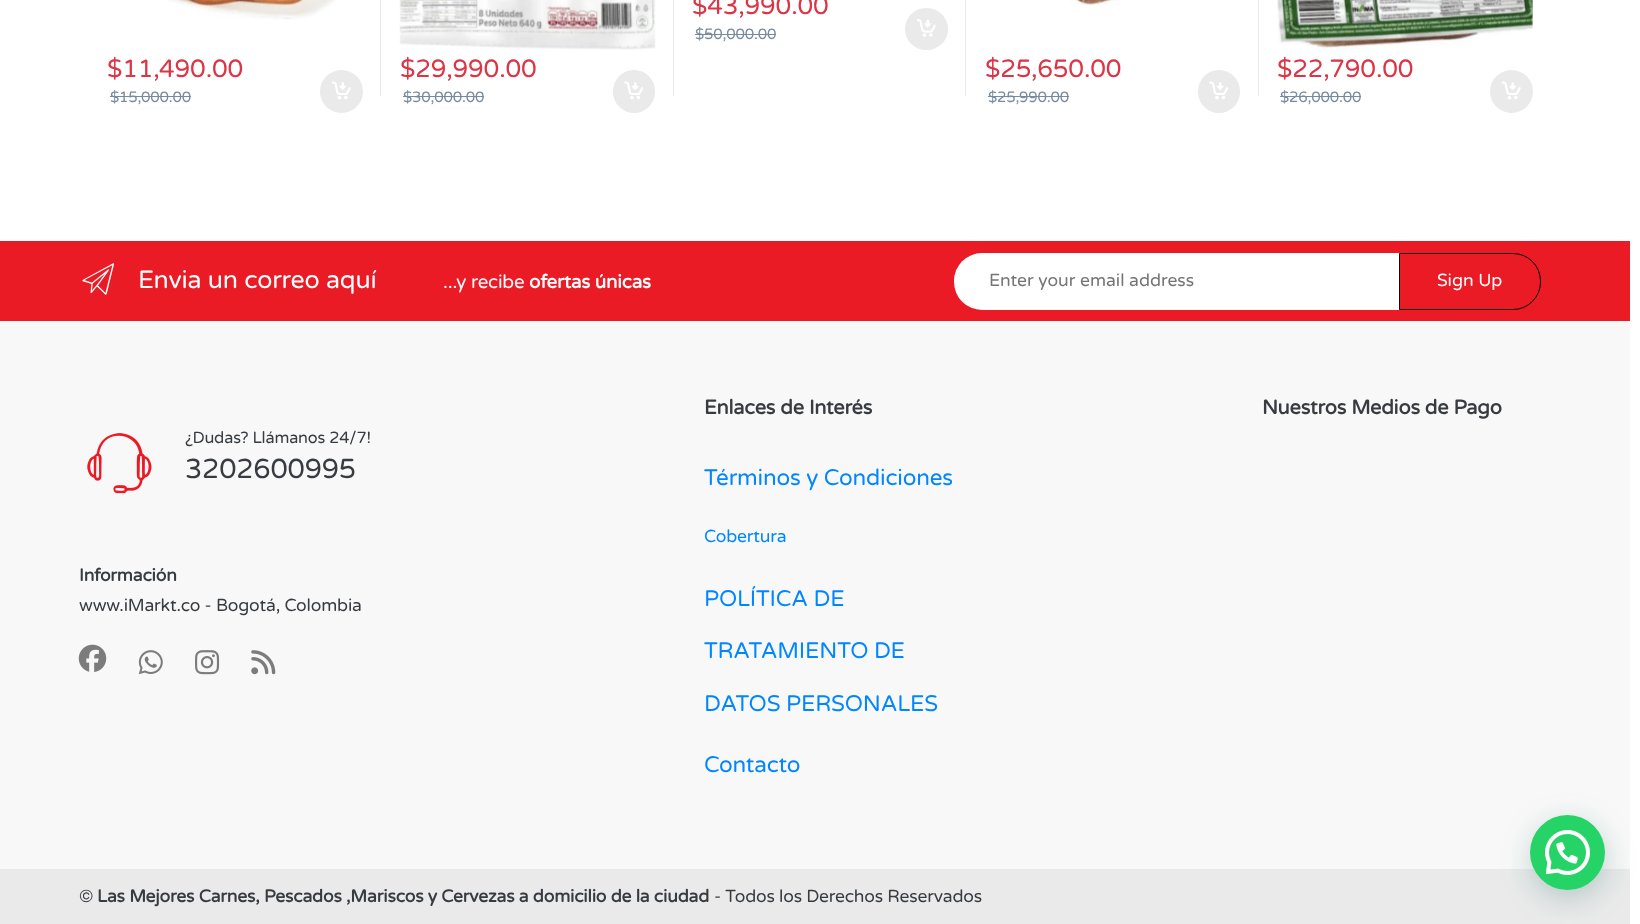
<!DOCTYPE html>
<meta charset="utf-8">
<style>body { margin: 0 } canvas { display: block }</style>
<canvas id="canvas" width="1640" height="924"></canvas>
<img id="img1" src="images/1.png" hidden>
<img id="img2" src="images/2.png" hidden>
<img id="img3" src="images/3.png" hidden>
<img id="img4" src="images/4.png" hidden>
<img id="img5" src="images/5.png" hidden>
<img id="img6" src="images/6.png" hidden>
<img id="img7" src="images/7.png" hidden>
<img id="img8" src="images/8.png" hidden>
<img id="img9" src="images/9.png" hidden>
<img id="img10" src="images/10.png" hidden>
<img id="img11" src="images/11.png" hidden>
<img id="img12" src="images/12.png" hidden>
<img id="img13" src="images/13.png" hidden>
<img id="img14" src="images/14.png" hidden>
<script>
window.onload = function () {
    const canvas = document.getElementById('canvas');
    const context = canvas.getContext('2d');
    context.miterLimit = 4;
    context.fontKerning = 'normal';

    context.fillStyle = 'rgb(255, 255, 255)';
    context.fillRect(0, 0, 1640, 924);
    context.fillStyle = 'rgb(118, 139, 158)';
    context.fillRect(695, 34, 81, 1);
    context.fillStyle = 'rgb(234, 234, 234)';
    context.beginPath();
    context.roundRect(905, 8, 43, 42, 21);
    context.fill();
    context.drawImage(document.getElementById('img1'), 917, 19, 19, 18);
    context.fillRect(965, 0, 1, 96);
    context.drawImage(document.getElementById('img2'), 167, 0, 169, 20);
    context.fillStyle = 'rgb(118, 139, 158)';
    context.fillRect(110, 96, 81, 1);
    context.fillStyle = 'rgb(234, 234, 234)';
    context.beginPath();
    context.arc(341.5, 91.5, 21.5, 0, 2 * Math.PI);
    context.fill();
    context.drawImage(document.getElementById('img3'), 331, 81, 20, 19);
    context.fillRect(380, 0, 1, 96);
    context.drawImage(document.getElementById('img4'), 399, 0, 257, 50);
    context.fillStyle = 'rgb(118, 139, 158)';
    context.fillRect(403, 96, 81, 1);
    context.fillStyle = 'rgb(234, 234, 234)';
    context.beginPath();
    context.roundRect(613, 70, 42, 43, 21);
    context.fill();
    context.drawImage(document.getElementById('img5'), 624, 81, 20, 19);
    context.fillRect(673, 0, 1, 96);
    context.drawImage(document.getElementById('img6'), 1070, 0, 50, 6);
    context.fillStyle = 'rgb(118, 139, 158)';
    context.fillRect(988, 96, 81, 1);
    context.fillStyle = 'rgb(234, 234, 234)';
    context.beginPath();
    context.roundRect(1198, 70, 42, 43, 21);
    context.fill();
    context.drawImage(document.getElementById('img5'), 1209, 81, 20, 19);
    context.fillRect(1258, 0, 1, 96);
    context.drawImage(document.getElementById('img7'), 1277, 0, 256, 53);
    context.fillStyle = 'rgb(118, 139, 158)';
    context.fillRect(1280, 96, 81, 1);
    context.fillStyle = 'rgb(234, 234, 234)';
    context.beginPath();
    context.arc(1511.5, 91.5, 21.5, 0, 2 * Math.PI);
    context.fill();
    context.drawImage(document.getElementById('img3'), 1501, 81, 20, 19);
    context.fillStyle = 'rgb(234, 27, 37)';
    context.fillRect(0, 241, 1630, 80);
    context.drawImage(document.getElementById('img8'), 82, 263, 32, 32);
    context.fillStyle = 'rgb(255, 255, 255)';
    context.beginPath();
    context.roundRect(954, 253, 446, 57, [28, 0, 0, 28]);
    context.fill();
    context.fillStyle = 'rgb(234, 27, 37)';
    context.beginPath();
    context.roundRect(1399.5, 253.5, 141, 56, [0, 27.5, 27.5, 0]);
    context.fill();
    context.strokeStyle = 'rgb(0, 0, 0)';
    context.stroke();
    context.fillStyle = 'rgb(248, 248, 248)';
    context.fillRect(0, 321, 1630, 548);
    context.drawImage(document.getElementById('img9'), 87, 433, 65, 61);
    context.drawImage(document.getElementById('img10'), 78, 644, 29, 28);
    context.drawImage(document.getElementById('img11'), 138, 650, 25, 25);
    context.drawImage(document.getElementById('img12'), 195, 650, 25, 25);
    context.drawImage(document.getElementById('img13'), 251, 650, 25, 25);
    context.fillStyle = 'rgb(234, 234, 234)';
    context.fillRect(0, 869, 1630, 55);
    context.fillStyle = 'rgba(7, 94, 84, 0.24)';
    context.filter = 'blur(15px)';
    context.beginPath();
    context.roundRect(1531, 823, 75, 75, 37.5);
    context.fill();
    context.filter = 'none';
    context.fillStyle = 'rgb(37, 211, 102)';
    context.beginPath();
    context.arc(1567.5, 852.5, 37.5, 0, 2 * Math.PI);
    context.fill();
    context.drawImage(document.getElementById('img14'), 1545, 830, 45, 45);
    context.letterSpacing = '-0.18px';
    context.font = '25px Varela Round';
    context.fillStyle = 'rgb(220, 53, 69)';
    context.fillText('$43,990.00', 692, 14);
    context.font = '15px Varela Round';
    context.fillStyle = 'rgb(118, 139, 158)';
    context.fillText('$50,000.00', 695, 39);
    context.font = '25px Varela Round';
    context.fillStyle = 'rgb(220, 53, 69)';
    context.fillText('$11,490.00', 107, 77);
    context.font = '15px Varela Round';
    context.fillStyle = 'rgb(118, 139, 158)';
    context.fillText('$15,000.00', 110, 102);
    context.font = '25px Varela Round';
    context.fillStyle = 'rgb(220, 53, 69)';
    context.fillText('$29,990.00', 400, 77);
    context.font = '15px Varela Round';
    context.fillStyle = 'rgb(118, 139, 158)';
    context.fillText('$30,000.00', 403, 102);
    context.font = '25px Varela Round';
    context.fillStyle = 'rgb(220, 53, 69)';
    context.fillText('$25,650.00', 985, 77);
    context.font = '15px Varela Round';
    context.fillStyle = 'rgb(118, 139, 158)';
    context.fillText('$25,990.00', 988, 102);
    context.font = '25px Varela Round';
    context.fillStyle = 'rgb(220, 53, 69)';
    context.fillText('$22,790.00', 1277, 77);
    context.font = '15px Varela Round';
    context.fillStyle = 'rgb(118, 139, 158)';
    context.fillText('$26,000.00', 1280, 102);
    context.font = '25px Varela Round';
    context.fillStyle = 'rgb(255, 255, 255)';
    context.fillText('Envia un correo aquí', 138, 288);
    context.font = '18.75px Varela Round';
    context.fillText('...y recibe', 443, 288);
    context.font = 'bold 18.75px Varela Round';
    context.fillText('ofertas únicas', 529, 288);
    context.letterSpacing = '0px';
    context.font = '17.5px Varela Round';
    context.fillStyle = 'rgb(117, 117, 117)';
    context.fillText('Enter your email address', 989, 286);
    context.fillStyle = 'rgb(255, 255, 255)';
    context.fillText('Sign Up', 1437, 286);
    context.letterSpacing = '-0.18px';
    context.font = '16.25px Varela Round';
    context.fillStyle = 'rgb(56, 60, 65)';
    context.fillText('¿Dudas? Llámanos 24/7!', 185, 443);
    context.font = '27.5px Varela Round';
    context.fillText('3202600995', 185, 478);
    context.font = 'bold 17.5px Varela Round';
    context.fillText('Información', 79, 581);
    context.font = '17.5px Varela Round';
    context.fillText('www.iMarkt.co - Bogotá, Colombia', 79, 611);
    context.font = 'bold 20px Varela Round';
    context.fillText('Enlaces de Interés', 704, 414);
    context.font = '22.5px Varela Round';
    context.fillStyle = 'rgb(0, 134, 255)';
    context.fillText('Términos y Condiciones', 704, 485);
    context.font = '17.5px Varela Round';
    context.fillText('Cobertura', 704, 542);
    context.font = '22.5px Varela Round';
    context.fillText('POLÍTICA DE', 704, 606);
    context.fillText('TRATAMIENTO DE', 704, 658);
    context.fillText('DATOS PERSONALES', 704, 711);
    context.fillText('Contacto', 704, 772);
    context.font = 'bold 20px Varela Round';
    context.fillStyle = 'rgb(56, 60, 65)';
    context.fillText('Nuestros Medios de Pago', 1262, 414);
    context.font = '17.5px Varela Round';
    context.fillText('©', 79, 902);
    context.font = 'bold 17.5px Varela Round';
    context.fillText('Las Mejores Carnes, Pescados ,Mariscos y Cervezas a domicilio de la ciudad', 97, 902);
    context.font = '17.5px Varela Round';
    context.fillText('- Todos los Derechos Reservados', 714, 902);
};
</script>
